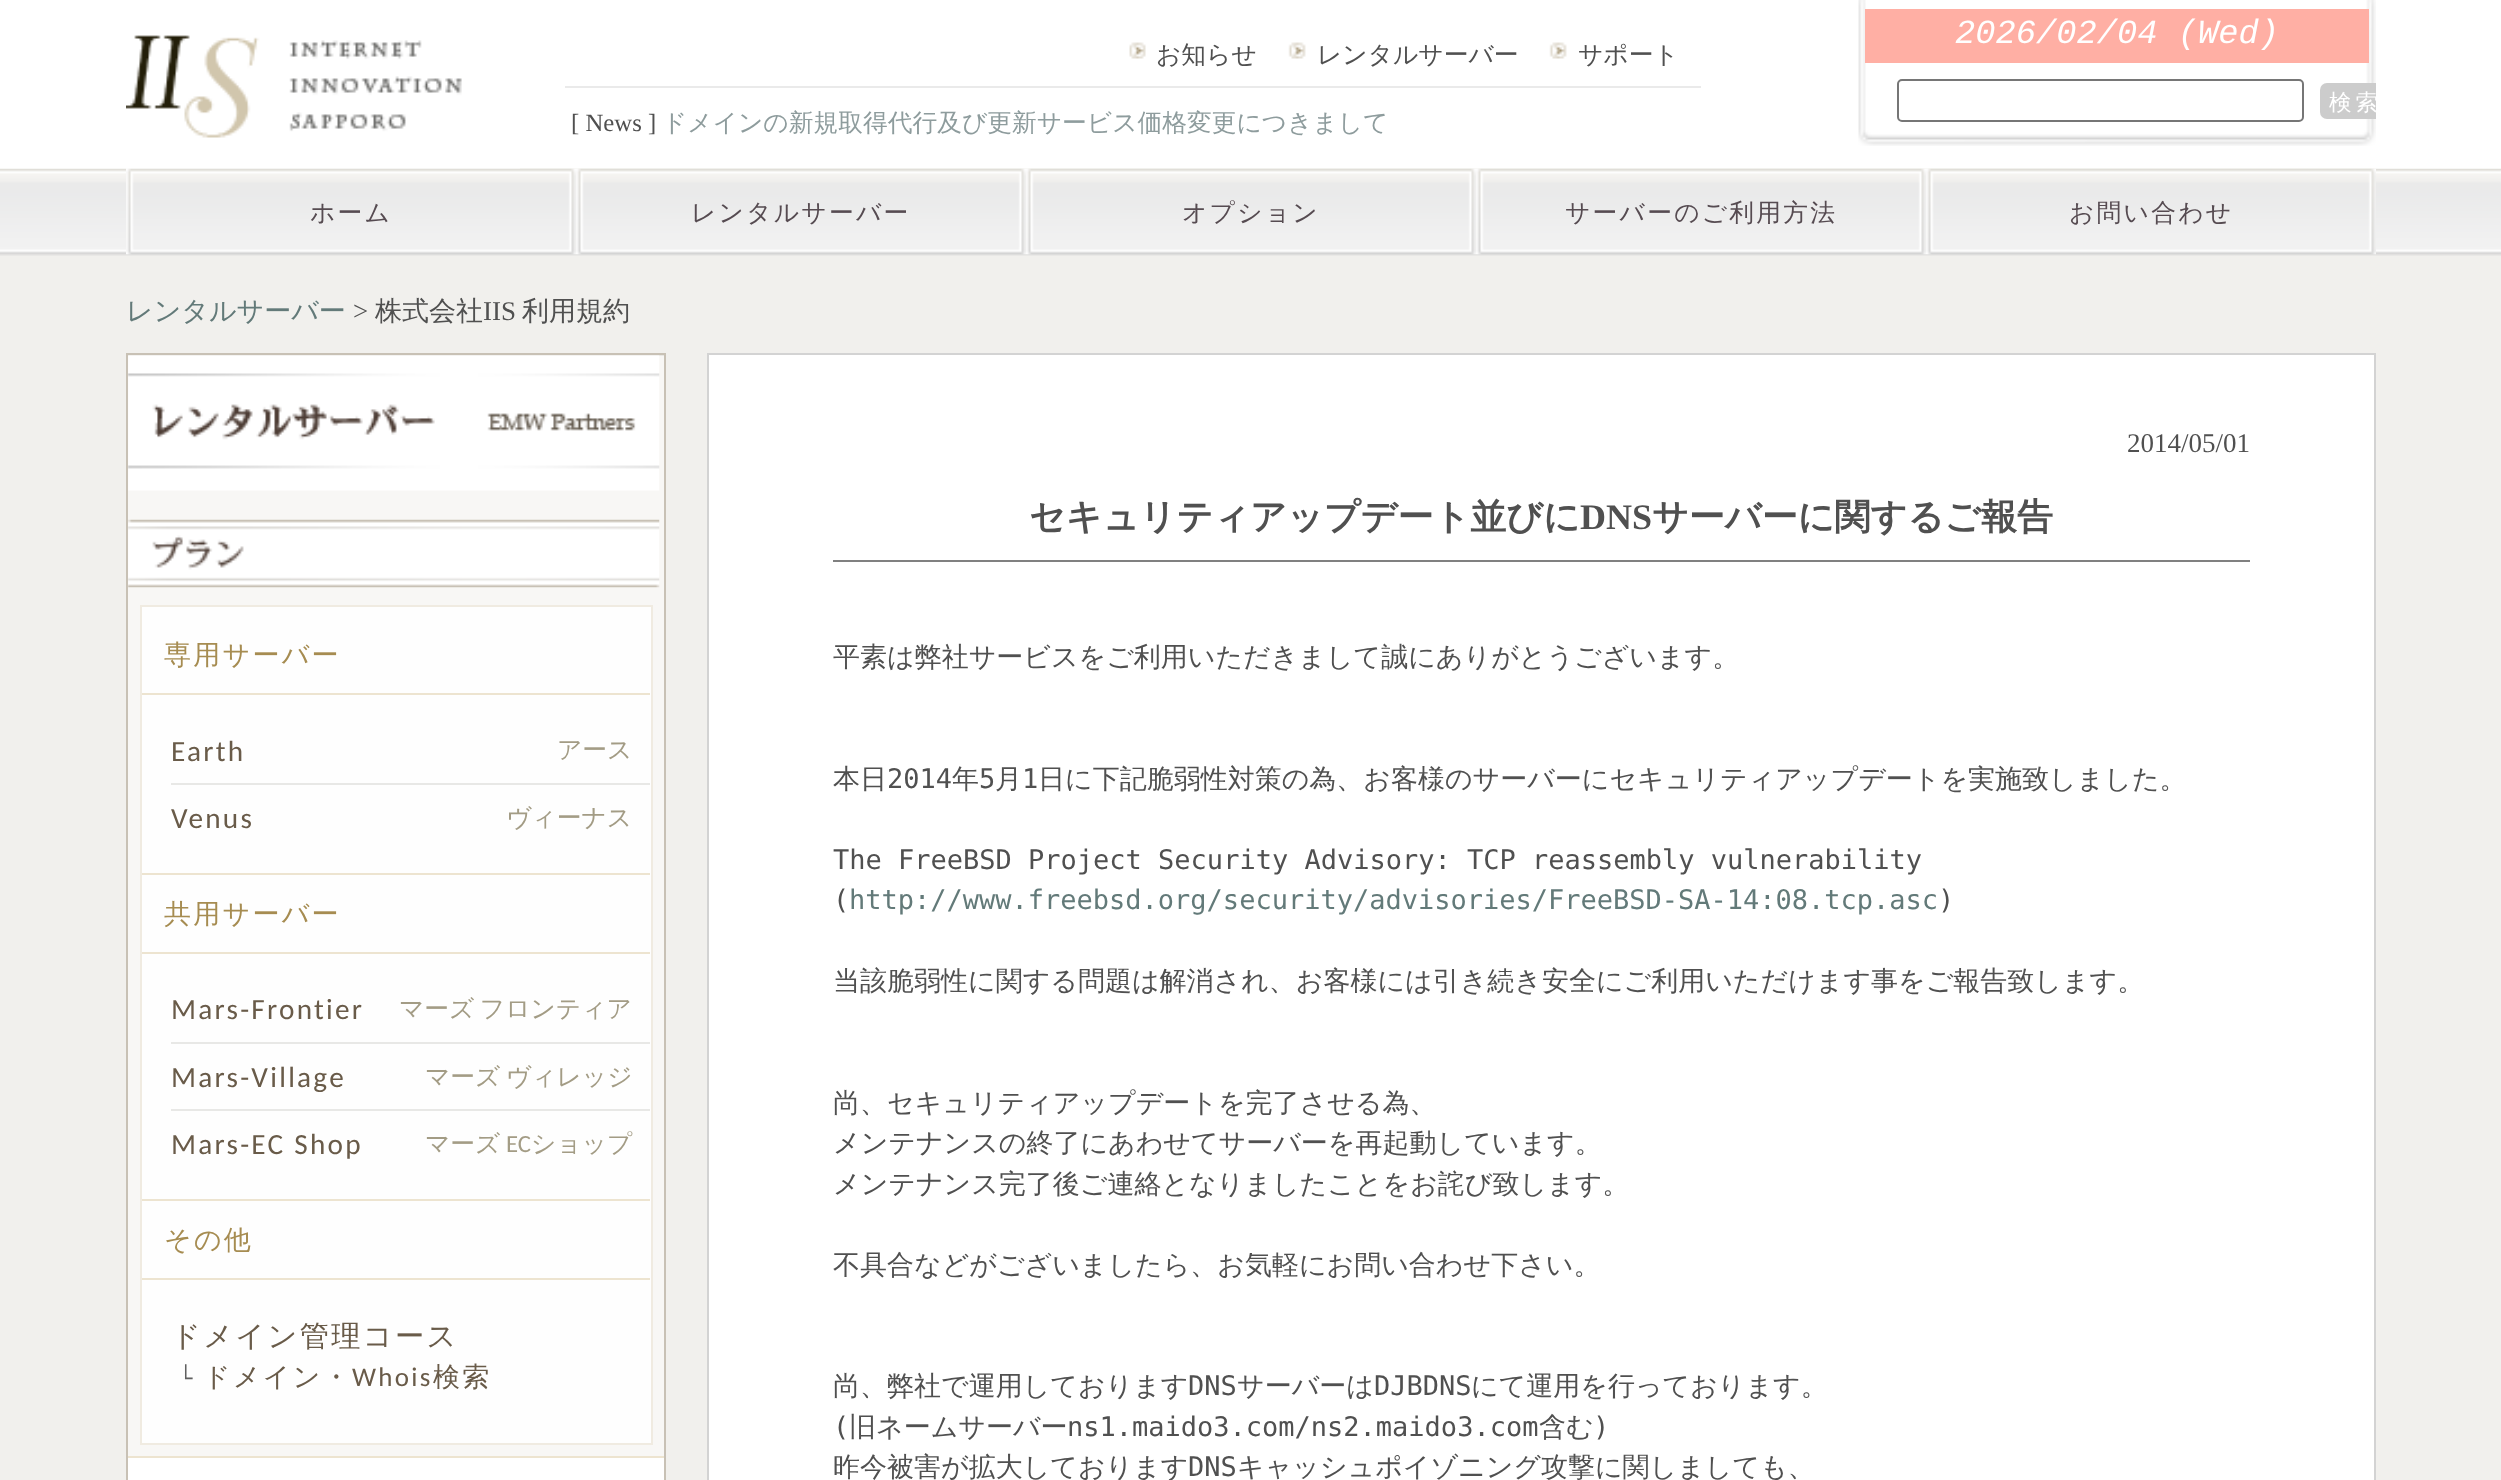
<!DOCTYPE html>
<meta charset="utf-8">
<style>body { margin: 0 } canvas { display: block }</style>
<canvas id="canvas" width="2501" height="1480"></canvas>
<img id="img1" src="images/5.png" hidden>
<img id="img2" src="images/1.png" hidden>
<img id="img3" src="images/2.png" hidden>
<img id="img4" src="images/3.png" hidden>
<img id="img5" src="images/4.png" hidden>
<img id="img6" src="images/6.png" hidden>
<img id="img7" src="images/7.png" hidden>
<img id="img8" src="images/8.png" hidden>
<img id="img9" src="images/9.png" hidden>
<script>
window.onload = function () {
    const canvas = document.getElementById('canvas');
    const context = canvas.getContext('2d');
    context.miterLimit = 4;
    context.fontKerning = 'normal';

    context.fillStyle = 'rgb(241, 240, 237)';
    context.fillRect(0, 0, 2501, 1480);
    context.fillStyle = 'rgb(255, 255, 255)';
    context.fillRect(0, 0, 2501, 169);
    context.drawImage(document.getElementById('img1'), 0, 168, 2501, 88);
    context.drawImage(document.getElementById('img2'), 126, 35, 394, 134);
    context.drawImage(document.getElementById('img3'), 1129, 42, 17, 17);
    context.drawImage(document.getElementById('img4'), 1288, 42, 18, 17);
    context.drawImage(document.getElementById('img4'), 1549, 42, 18, 17);
    context.fillStyle = 'rgb(234, 234, 234)';
    context.fillRect(565, 86, 1136, 2);
    context.drawImage(document.getElementById('img5'), 1858, 0, 518, 146);
    context.fillStyle = 'rgb(255, 175, 164)';
    context.fillRect(1865, 9, 504, 54);
    context.beginPath();
    context.roundRect(1898, 80, 405, 41, 4);
    context.strokeStyle = 'rgb(118, 118, 118)';
    context.lineWidth = 2;
    context.stroke();
    context.fillStyle = 'rgb(204, 204, 204)';
    context.beginPath();
    context.roundRect(2320, 83, 56, 36, [7, 0, 0, 7]);
    context.fill();
    context.drawImage(document.getElementById('img6'), 126, 168, 450, 87);
    context.drawImage(document.getElementById('img7'), 576, 168, 450, 87);
    context.drawImage(document.getElementById('img7'), 1026, 168, 450, 87);
    context.drawImage(document.getElementById('img7'), 1476, 168, 450, 87);
    context.drawImage(document.getElementById('img7'), 1926, 168, 450, 87);
    context.fillStyle = 'rgb(232, 231, 227)';
    context.fillRect(128, 355, 536, 1);
    context.strokeStyle = 'rgb(200, 193, 181)';
    context.strokeRect(127, 354, 538, 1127);
    context.fillStyle = 'rgb(248, 247, 245)';
    context.fillRect(128, 356, 536, 1100);
    context.drawImage(document.getElementById('img8'), 128, 355, 532, 136);
    context.drawImage(document.getElementById('img9'), 128, 519, 532, 69);
    context.fillStyle = 'rgb(254, 254, 254)';
    context.beginPath();
    context.rect(141, 606, 511, 838);
    context.fill();
    context.strokeStyle = 'rgb(240, 235, 225)';
    context.stroke();
    context.fillStyle = 'rgb(237, 228, 208)';
    context.fillRect(142, 693, 508, 2);
    context.fillStyle = 'rgb(232, 232, 230)';
    context.fillRect(171, 783, 479, 2);
    context.fillStyle = 'rgb(237, 228, 208)';
    context.fillRect(142, 873, 508, 2);
    context.fillRect(142, 952, 508, 2);
    context.fillStyle = 'rgb(232, 232, 230)';
    context.fillRect(171, 1042, 479, 2);
    context.fillRect(171, 1109, 479, 2);
    context.fillStyle = 'rgb(237, 228, 208)';
    context.fillRect(142, 1199, 508, 2);
    context.fillRect(142, 1278, 508, 2);
    context.fillStyle = 'rgb(255, 255, 255)';
    context.fillRect(128, 1458, 536, 22);
    context.fillStyle = 'rgb(237, 228, 208)';
    context.fillRect(128, 1456, 536, 2);
    context.fillStyle = 'rgb(255, 255, 255)';
    context.beginPath();
    context.rect(708, 354, 1667, 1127);
    context.fill();
    context.strokeStyle = 'rgb(211, 211, 211)';
    context.stroke();
    context.fillStyle = 'rgb(128, 128, 128)';
    context.fillRect(833, 560, 1417, 2);
    context.font = '500 24.75px WenQuanYi Zen Hei';
    context.fillStyle = 'rgb(80, 80, 80)';
    context.fillText('お知らせ', 1156, 63);
    context.fillText('レンタルサーバー', 1317, 63);
    context.fillText('サポート', 1578, 63);
    context.font = '24.75px Liberation Serif';
    context.fillText('[ News ]', 571, 131);
    context.font = '500 24.75px WenQuanYi Zen Hei';
    context.fillStyle = 'rgb(142, 156, 157)';
    context.fillText('ドメインの新規取得代行及び更新サービス価格変更につきまして', 662, 131);
    context.font = 'italic 33.75px Liberation Mono';
    context.fillStyle = 'rgb(255, 255, 255)';
    context.fillText('2026/02/04 (Wed)', 1955, 43);
    context.save();
    context.beginPath();
    context.rect(1859, 0, 517, 155);
    context.clip();
    context.letterSpacing = '4px';
    context.font = '500 22.5px WenQuanYi Zen Hei';
    context.fillText('検索', 2329, 110);
    context.restore();
    context.letterSpacing = '2.25px';
    context.font = '500 24.75px WenQuanYi Zen Hei';
    context.fillStyle = 'rgb(86, 75, 81)';
    context.fillText('ホーム', 310, 221);
    context.fillText('レンタルサーバー', 691, 221);
    context.fillText('オプション', 1182, 221);
    context.fillText('サーバーのご利用方法', 1565, 221);
    context.fillText('お問い合わせ', 2069, 221);
    context.letterSpacing = '0px';
    context.font = '500 27px WenQuanYi Zen Hei';
    context.fillStyle = 'rgb(99, 122, 121)';
    context.fillText('レンタルサーバー', 126, 320);
    context.font = '27px Liberation Serif';
    context.fillStyle = 'rgb(80, 80, 80)';
    context.fillText('>', 353, 320);
    context.font = '500 27px WenQuanYi Zen Hei';
    context.fillText('株式会社', 375, 320);
    context.font = '27px Liberation Serif';
    context.fillText('IIS', 483, 320);
    context.font = '500 27px WenQuanYi Zen Hei';
    context.fillText('利用規約', 522, 320);
    context.letterSpacing = '2.25px';
    context.fillStyle = 'rgb(166, 140, 81)';
    context.fillText('専用サーバー', 164, 664);
    context.font = '29.25px Carlito';
    context.fillStyle = 'rgb(105, 91, 73)';
    context.fillText('Earth', 171, 761);
    context.letterSpacing = '0px';
    context.font = '500 24.75px WenQuanYi Zen Hei';
    context.fillStyle = 'rgb(163, 156, 133)';
    context.fillText('アース', 557, 758);
    context.letterSpacing = '2.25px';
    context.font = '29.25px Carlito';
    context.fillStyle = 'rgb(105, 91, 73)';
    context.fillText('Venus', 171, 828);
    context.letterSpacing = '0px';
    context.font = '500 24.75px WenQuanYi Zen Hei';
    context.fillStyle = 'rgb(163, 156, 133)';
    context.fillText('ヴィーナス', 506, 826);
    context.letterSpacing = '2.25px';
    context.font = '500 27px WenQuanYi Zen Hei';
    context.fillStyle = 'rgb(166, 140, 81)';
    context.fillText('共用サーバー', 164, 923);
    context.font = '29.25px Carlito';
    context.fillStyle = 'rgb(105, 91, 73)';
    context.fillText('Mars-Frontier', 171, 1019);
    context.letterSpacing = '0px';
    context.wordSpacing = '-2px';
    context.font = '500 24.75px WenQuanYi Zen Hei';
    context.fillStyle = 'rgb(163, 156, 133)';
    context.fillText('マーズ フロンティア', 399, 1017);
    context.letterSpacing = '2.25px';
    context.wordSpacing = '0px';
    context.font = '29.25px Carlito';
    context.fillStyle = 'rgb(105, 91, 73)';
    context.fillText('Mars-Village', 171, 1087);
    context.letterSpacing = '0px';
    context.wordSpacing = '-2px';
    context.font = '500 24.75px WenQuanYi Zen Hei';
    context.fillStyle = 'rgb(163, 156, 133)';
    context.fillText('マーズ ヴィレッジ', 425, 1085);
    context.letterSpacing = '2.25px';
    context.wordSpacing = '0px';
    context.font = '29.25px Carlito';
    context.fillStyle = 'rgb(105, 91, 73)';
    context.fillText('Mars-EC Shop', 171, 1154);
    context.letterSpacing = '0px';
    context.font = '500 24.75px WenQuanYi Zen Hei';
    context.fillStyle = 'rgb(163, 156, 133)';
    context.fillText('マーズ', 425, 1152);
    context.font = '24.75px Carlito';
    context.fillText('EC', 506, 1152);
    context.font = '500 24.75px WenQuanYi Zen Hei';
    context.fillText('ショップ', 531, 1152);
    context.letterSpacing = '2.25px';
    context.font = '500 27px WenQuanYi Zen Hei';
    context.fillStyle = 'rgb(166, 140, 81)';
    context.fillText('その他', 164, 1249);
    context.font = '500 29.25px WenQuanYi Zen Hei';
    context.fillStyle = 'rgb(105, 91, 73)';
    context.fillText('ドメイン管理コース', 171, 1346);
    context.font = '27px Carlito';
    context.fillStyle = 'rgb(96, 96, 96)';
    context.fillText('└', 179, 1386);
    context.font = '500 27px WenQuanYi Zen Hei';
    context.fillStyle = 'rgb(105, 91, 73)';
    context.fillText('ドメイン・', 203, 1386);
    context.font = '27px Carlito';
    context.fillText('Whois', 352, 1386);
    context.font = '500 27px WenQuanYi Zen Hei';
    context.fillText('検索', 433, 1386);
    context.letterSpacing = '0px';
    context.font = '27px Liberation Serif';
    context.fillStyle = 'rgb(80, 80, 80)';
    context.fillText('2014/05/01', 2127, 452);
    context.font = 'bold 36px WenQuanYi Zen Hei';
    context.fillText('セキュリティアップデート並びに', 1029, 529);
    context.font = 'bold 36px Liberation Serif';
    context.fillText('DNS', 1580, 529);
    context.font = 'bold 36px WenQuanYi Zen Hei';
    context.fillText('サーバーに関するご報告', 1652, 529);
    context.font = '500 27px WenQuanYi Zen Hei';
    context.fillText('平素は弊社サービスをご利用いただきまして誠にありがとうございます。', 833, 666);
    context.fillText('本日', 833, 788);
    context.font = '27px DejaVu Sans Mono';
    context.fillText('2014', 887, 788);
    context.font = '500 27px WenQuanYi Zen Hei';
    context.fillText('年', 952, 788);
    context.font = '27px DejaVu Sans Mono';
    context.fillText('5', 979, 788);
    context.font = '500 27px WenQuanYi Zen Hei';
    context.fillText('月', 995, 788);
    context.font = '27px DejaVu Sans Mono';
    context.fillText('1', 1022, 788);
    context.font = '500 27px WenQuanYi Zen Hei';
    context.fillText('日に下記脆弱性対策の為、お客様のサーバーにセキュリティアップデートを実施致しました。', 1038, 788);
    context.font = '27px DejaVu Sans Mono';
    context.fillText('The FreeBSD Project Security Advisory: TCP reassembly vulnerability', 833, 869);
    context.fillText('(', 833, 909);
    context.fillStyle = 'rgb(99, 122, 121)';
    context.fillText('http://www.freebsd.org/security/advisories/FreeBSD-SA-14:08.tcp.asc', 849, 909);
    context.fillStyle = 'rgb(80, 80, 80)';
    context.fillText(')', 1938, 909);
    context.font = '500 27px WenQuanYi Zen Hei';
    context.fillText('当該脆弱性に関する問題は解消され、お客様には引き続き安全にご利用いただけます事をご報告致します。', 833, 990);
    context.fillText('尚、セキュリティアップデートを完了させる為、', 833, 1112);
    context.fillText('メンテナンスの終了にあわせてサーバーを再起動しています。', 833, 1152);
    context.fillText('メンテナンス完了後ご連絡となりましたことをお詫び致します。', 833, 1193);
    context.fillText('不具合などがございましたら、お気軽にお問い合わせ下さい。', 833, 1274);
    context.fillText('尚、弊社で運用しております', 833, 1395);
    context.font = '27px DejaVu Sans Mono';
    context.fillText('DNS', 1188, 1395);
    context.font = '500 27px WenQuanYi Zen Hei';
    context.fillText('サーバーは', 1237, 1395);
    context.font = '27px DejaVu Sans Mono';
    context.fillText('DJBDNS', 1374, 1395);
    context.font = '500 27px WenQuanYi Zen Hei';
    context.fillText('にて運用を行っております。', 1471, 1395);
    context.font = '27px DejaVu Sans Mono';
    context.fillText('(', 833, 1436);
    context.font = '500 27px WenQuanYi Zen Hei';
    context.fillText('旧ネームサーバー', 849, 1436);
    context.font = '27px DejaVu Sans Mono';
    context.fillText('ns1.maido3.com/ns2.maido3.com', 1067, 1436);
    context.font = '500 27px WenQuanYi Zen Hei';
    context.fillText('含む', 1539, 1436);
    context.font = '27px DejaVu Sans Mono';
    context.fillText(')', 1593, 1436);
    context.font = '500 27px WenQuanYi Zen Hei';
    context.fillText('昨今被害が拡大しております', 833, 1476);
    context.font = '27px DejaVu Sans Mono';
    context.fillText('DNS', 1188, 1476);
    context.font = '500 27px WenQuanYi Zen Hei';
    context.fillText('キャッシュポイゾニング攻撃に関しましても、', 1237, 1476);
};
</script>
